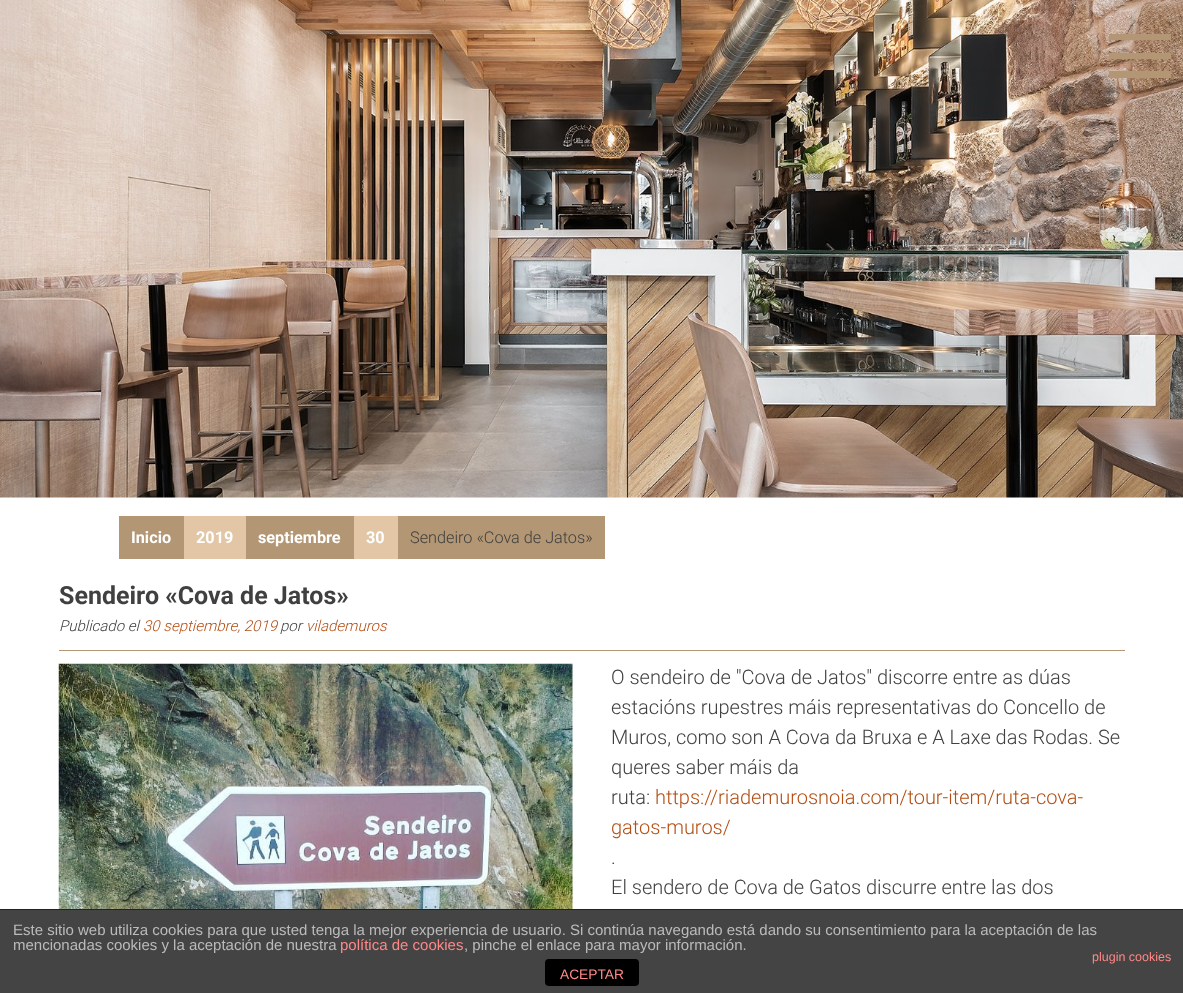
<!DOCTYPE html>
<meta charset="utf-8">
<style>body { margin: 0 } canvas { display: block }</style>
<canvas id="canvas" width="1183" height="993"></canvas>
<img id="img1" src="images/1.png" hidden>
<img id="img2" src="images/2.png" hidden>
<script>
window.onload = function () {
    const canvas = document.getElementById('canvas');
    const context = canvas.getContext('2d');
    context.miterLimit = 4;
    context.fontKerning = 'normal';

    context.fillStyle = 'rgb(255, 255, 255)';
    context.fillRect(0, 0, 1183, 993);
    context.drawImage(document.getElementById('img1'), 0, 0, 1183, 498);
    context.fillStyle = 'rgb(179, 150, 115)';
    context.fillRect(1109, 34, 62, 6);
    context.fillRect(1109, 53, 62, 6);
    context.fillRect(1109, 71, 62, 7);
    context.fillRect(119, 516, 65, 43);
    context.fillStyle = 'rgb(226, 198, 165)';
    context.fillRect(184, 516, 62, 43);
    context.fillStyle = 'rgb(179, 150, 115)';
    context.fillRect(246, 516, 108, 43);
    context.fillStyle = 'rgb(226, 198, 165)';
    context.fillRect(354, 516, 44, 43);
    context.fillStyle = 'rgb(179, 150, 115)';
    context.fillRect(398, 516, 207, 43);
    context.fillRect(59, 650, 1066, 1);
    context.drawImage(document.getElementById('img2'), 58, 663, 515, 246);
    context.fillStyle = 'rgb(68, 68, 68)';
    context.fillRect(0, 910, 1183, 83);
    context.fillStyle = 'rgb(34, 34, 34)';
    context.fillRect(0, 909, 1183, 1);
    context.fillStyle = 'rgb(0, 0, 0)';
    context.beginPath();
    context.roundRect(545, 959, 94, 27, 4);
    context.fill();
    context.font = 'bold 16.25px Roboto';
    context.fillStyle = 'rgb(255, 255, 255)';
    context.fillText('Inicio', 131, 543);
    context.fillText('2019', 196, 543);
    context.fillText('septiembre', 258, 543);
    context.fillText('30', 366, 543);
    context.font = '300 16.25px Roboto';
    context.fillStyle = 'rgb(64, 64, 64)';
    context.fillText('Sendeiro «Cova de Jatos»', 410, 543);
    context.font = 'bold 25px Roboto';
    context.fillText('Sendeiro «Cova de Jatos»', 59, 604);
    context.font = 'italic 300 15px Roboto';
    context.fillText('Publicado el', 59, 631);
    context.fillStyle = 'rgb(179, 77, 18)';
    context.fillText('30 septiembre, 2019', 143, 631);
    context.fillStyle = 'rgb(64, 64, 64)';
    context.fillText('por', 280, 631);
    context.fillStyle = 'rgb(179, 77, 18)';
    context.fillText('vilademuros', 306, 631);
    context.font = '300 20px Roboto';
    context.fillStyle = 'rgb(64, 64, 64)';
    context.fillText('O sendeiro de "Cova de Jatos" discorre entre as dúas', 611, 684);
    context.fillText('estacións rupestres máis representativas do Concello de', 611, 714);
    context.fillText('Muros, como son A Cova da Bruxa e A Laxe das Rodas. Se', 611, 744);
    context.fillText('queres saber máis da', 611, 774);
    context.fillText('ruta:', 611, 804);
    context.fillStyle = 'rgb(179, 77, 18)';
    context.fillText('https://riademurosnoia.com/tour-item/ruta-cova-', 655, 804);
    context.fillText('gatos-muros/', 611, 834);
    context.fillStyle = 'rgb(64, 64, 64)';
    context.fillText('.', 611, 864);
    context.fillText('El sendero de Cova de Gatos discurre entre las dos', 611, 894);
    context.font = '15px Liberation Sans';
    context.fillStyle = 'rgb(187, 187, 187)';
    context.fillText('Este sitio web utiliza cookies para que usted tenga la mejor experiencia de usuario. Si continúa navegando está dando su consentimiento para la aceptación de las', 13, 935);
    context.fillText('mencionadas cookies y la aceptación de nuestra', 13, 950);
    context.fillStyle = 'rgb(255, 136, 136)';
    context.fillText('política de cookies', 340, 950);
    context.fillStyle = 'rgb(187, 187, 187)';
    context.fillText(', pinche el enlace para mayor información.', 464, 950);
    context.font = '12.5px Liberation Sans';
    context.fillStyle = 'rgb(255, 136, 136)';
    context.fillText('plugin cookies', 1092, 961);
    context.font = '13.75px Liberation Sans';
    context.fillText('ACEPTAR', 560, 979);
};
</script>
